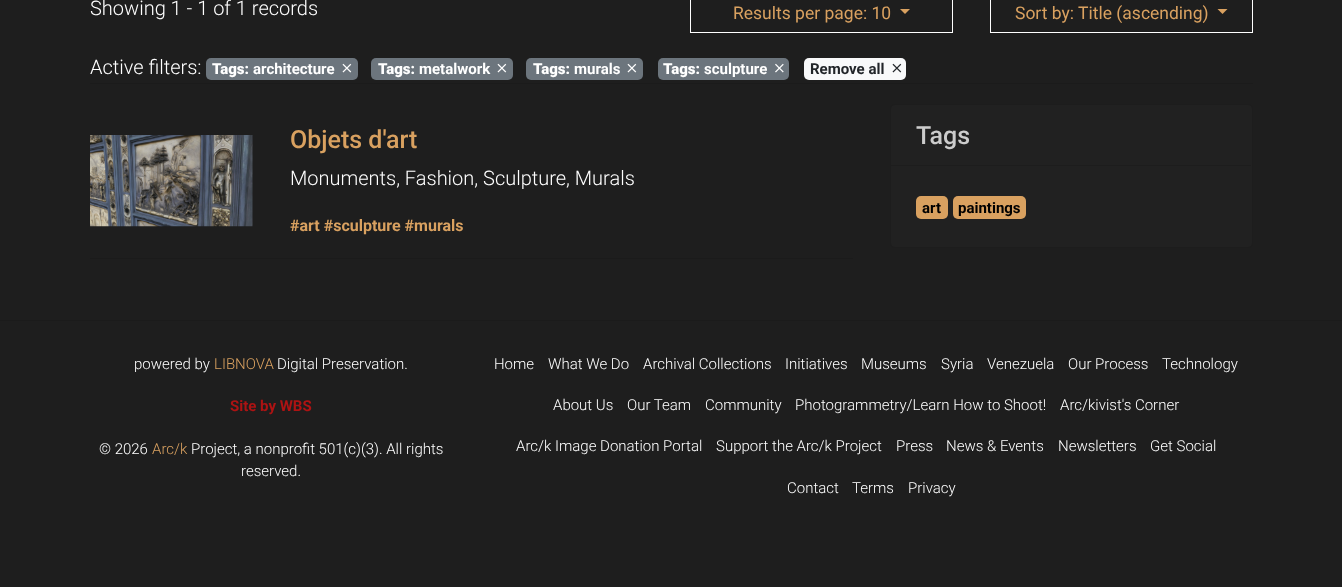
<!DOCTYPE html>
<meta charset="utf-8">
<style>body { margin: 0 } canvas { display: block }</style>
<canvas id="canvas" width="1342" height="587"></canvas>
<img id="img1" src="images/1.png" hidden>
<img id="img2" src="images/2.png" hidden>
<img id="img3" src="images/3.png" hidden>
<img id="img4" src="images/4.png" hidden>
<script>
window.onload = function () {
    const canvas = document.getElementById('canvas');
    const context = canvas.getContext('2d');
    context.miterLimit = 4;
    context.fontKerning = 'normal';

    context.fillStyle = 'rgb(30, 30, 30)';
    context.fillRect(0, 0, 1342, 587);
    context.strokeStyle = 'rgb(255, 255, 255)';
    context.strokeRect(690.5, -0.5, 262, 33);
    context.fillStyle = 'rgb(217, 161, 96)';
    context.beginPath();
    context.moveTo(900, 9);
    context.lineTo(910, 9);
    context.lineTo(905, 14);
    context.closePath();
    context.fill();
    context.strokeRect(990.5, -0.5, 262, 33);
    context.beginPath();
    context.moveTo(1217.5, 9);
    context.lineTo(1227.5, 9);
    context.lineTo(1222.5, 14);
    context.closePath();
    context.fill();
    context.fillStyle = 'rgb(108, 117, 125)';
    context.beginPath();
    context.roundRect(206, 58, 152, 22, 5);
    context.fill();
    context.drawImage(document.getElementById('img1'), 342, 63, 10, 10);
    context.beginPath();
    context.roundRect(371, 58, 142, 22, 5);
    context.fill();
    context.drawImage(document.getElementById('img1'), 497, 63, 10, 10);
    context.beginPath();
    context.roundRect(526, 58, 117, 22, 5);
    context.fill();
    context.drawImage(document.getElementById('img1'), 627, 63, 10, 10);
    context.beginPath();
    context.roundRect(658, 58, 131, 22, 5);
    context.fill();
    context.drawImage(document.getElementById('img2'), 775, 63, 9, 10);
    context.fillStyle = 'rgb(248, 249, 250)';
    context.beginPath();
    context.roundRect(804, 58, 102, 22, 5);
    context.fill();
    context.drawImage(document.getElementById('img3'), 892, 63, 10, 10);
    context.fillStyle = 'rgb(27, 27, 27)';
    context.fillRect(90, 83, 1163, 1);
    context.drawImage(document.getElementById('img4'), 90, 135, 163, 92);
    context.fillRect(90, 258, 763, 1);
    context.fillStyle = 'rgb(33, 33, 33)';
    context.beginPath();
    context.roundRect(890.5, 104.5, 362, 143, 4.5);
    context.fill();
    context.strokeStyle = 'rgb(29, 29, 29)';
    context.stroke();
    context.fillStyle = 'rgb(29, 29, 29)';
    context.fillRect(891, 165, 360, 1);
    context.fillStyle = 'rgb(217, 161, 96)';
    context.beginPath();
    context.roundRect(916, 196, 32, 23, 5);
    context.fill();
    context.beginPath();
    context.roundRect(953, 196, 73, 23, 5);
    context.fill();
    context.fillStyle = 'rgb(27, 27, 27)';
    context.fillRect(0, 320, 1342, 1);
    context.font = '300 20px Roboto';
    context.fillStyle = 'rgb(255, 255, 255)';
    context.fillText('Showing 1 - 1 of 1 records', 90, 15);
    context.font = '17.5px Roboto';
    context.fillStyle = 'rgb(217, 161, 96)';
    context.fillText('Results per page: 10', 733, 19);
    context.fillText('Sort by: Title (ascending)', 1015, 19);
    context.font = '300 20px Roboto';
    context.fillStyle = 'rgb(255, 255, 255)';
    context.fillText('Active filters:', 90, 74);
    context.font = '900 15px Roboto';
    context.fillText('Tags:', 212, 74);
    context.font = 'bold 15px Roboto';
    context.fillText('architecture', 253, 74);
    context.font = '900 15px Roboto';
    context.fillText('Tags:', 378, 74);
    context.font = 'bold 15px Roboto';
    context.fillText('metalwork', 419, 74);
    context.font = '900 15px Roboto';
    context.fillText('Tags:', 533, 74);
    context.font = 'bold 15px Roboto';
    context.fillText('murals', 574, 74);
    context.font = '900 15px Roboto';
    context.fillText('Tags:', 663, 74);
    context.font = 'bold 15px Roboto';
    context.fillText('sculpture', 704, 74);
    context.fillStyle = 'rgb(33, 37, 41)';
    context.fillText('Remove all', 810, 74);
    context.font = '500 25px Roboto';
    context.fillStyle = 'rgb(217, 161, 96)';
    context.fillText('Objets d\'art', 290, 148);
    context.font = '300 20px Roboto';
    context.fillStyle = 'rgb(255, 255, 255)';
    context.fillText('Monuments, Fashion, Sculpture, Murals', 290, 185);
    context.font = 'bold 16px Roboto';
    context.fillStyle = 'rgb(217, 161, 96)';
    context.fillText('#art #sculpture #murals', 290, 231);
    context.font = '500 25px Roboto';
    context.fillStyle = 'rgb(204, 204, 204)';
    context.fillText('Tags', 916, 144);
    context.font = 'bold 15px Roboto';
    context.fillStyle = 'rgb(0, 0, 0)';
    context.fillText('art', 922, 213);
    context.fillText('paintings', 958, 213);
    context.font = '300 15px Roboto';
    context.fillStyle = 'rgb(255, 255, 255)';
    context.fillText('powered by', 134, 369);
    context.fillStyle = 'rgb(217, 161, 96)';
    context.fillText('LIBNOVA', 214, 369);
    context.fillStyle = 'rgb(255, 255, 255)';
    context.fillText('Digital Preservation.', 277, 369);
    context.font = 'bold 15px Roboto';
    context.fillStyle = 'rgb(173, 19, 19)';
    context.fillText('Site by WBS', 230, 411);
    context.font = '300 15px Roboto';
    context.fillStyle = 'rgb(255, 255, 255)';
    context.fillText('© 2026', 99, 454);
    context.fillStyle = 'rgb(217, 161, 96)';
    context.fillText('Arc/k', 152, 454);
    context.fillStyle = 'rgb(255, 255, 255)';
    context.fillText('Project, a nonprofit 501(c)(3). All rights', 191, 454);
    context.fillText('reserved.', 241, 476);
    context.fillText('Home', 494, 369);
    context.fillText('What We Do', 548, 369);
    context.fillText('Archival Collections', 643, 369);
    context.fillText('Initiatives', 785, 369);
    context.fillText('Museums', 861, 369);
    context.fillText('Syria', 941, 369);
    context.fillText('Venezuela', 987, 369);
    context.fillText('Our Process', 1068, 369);
    context.fillText('Technology', 1162, 369);
    context.fillText('About Us', 553, 410);
    context.fillText('Our Team', 627, 410);
    context.fillText('Community', 705, 410);
    context.fillText('Photogrammetry/Learn How to Shoot!', 795, 410);
    context.fillText('Arc/kivist\'s Corner', 1060, 410);
    context.fillText('Arc/k Image Donation Portal', 516, 451);
    context.fillText('Support the Arc/k Project', 716, 451);
    context.fillText('Press', 896, 451);
    context.fillText('News & Events', 946, 451);
    context.fillText('Newsletters', 1058, 451);
    context.fillText('Get Social', 1150, 451);
    context.fillText('Contact', 787, 493);
    context.fillText('Terms', 852, 493);
    context.fillText('Privacy', 908, 493);
};
</script>
